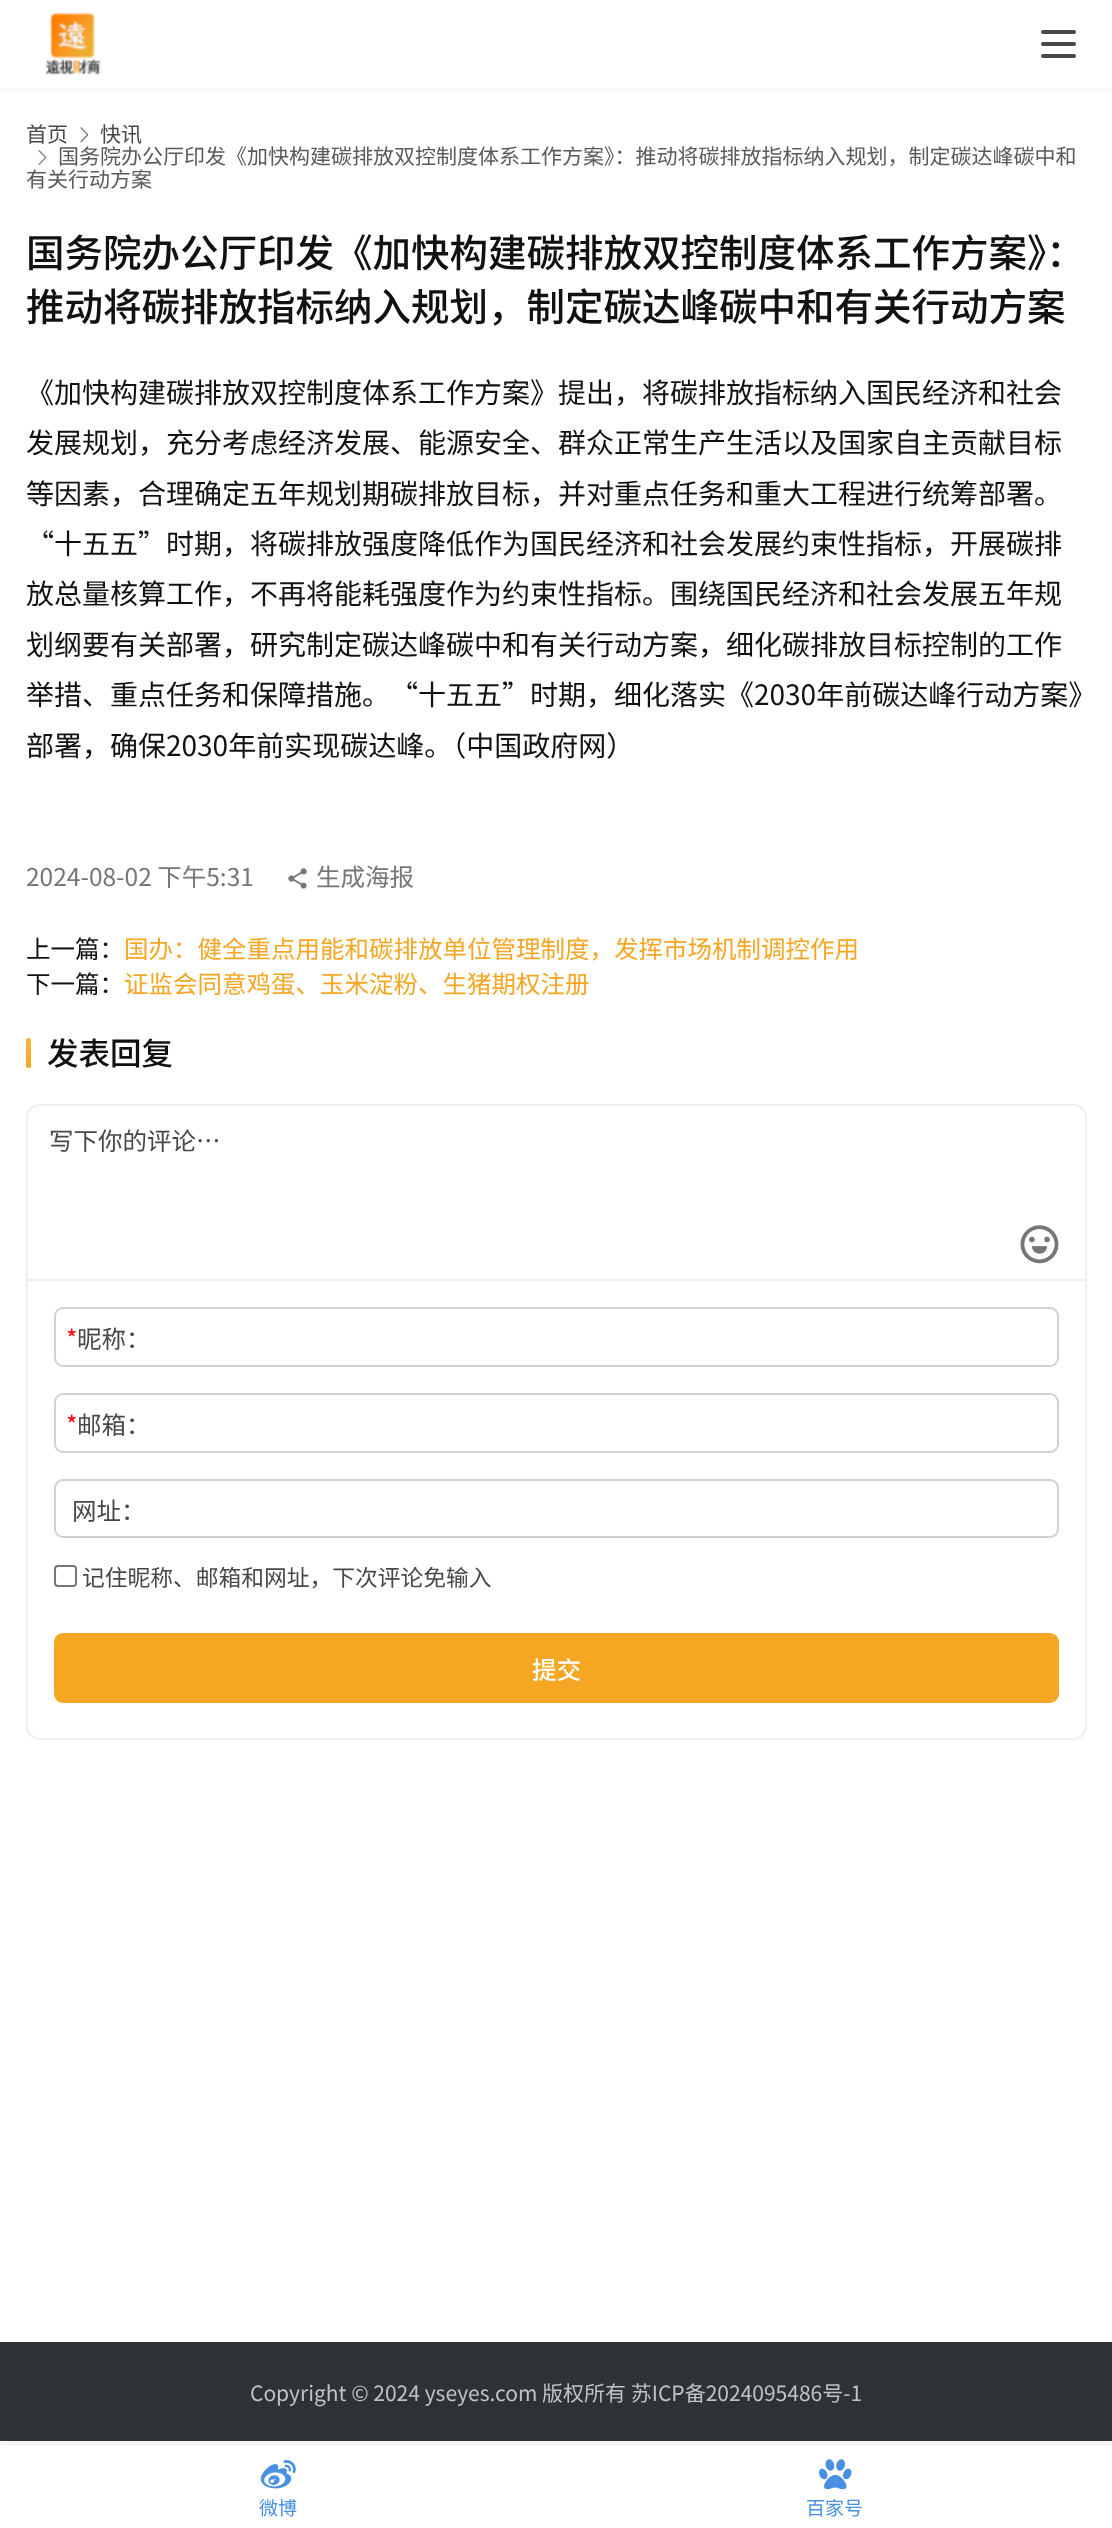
<!DOCTYPE html>
<meta charset="utf-8">
<style>body { margin: 0 } canvas { display: block }</style>
<canvas id="canvas" width="1112" height="2528"></canvas>
<img id="img1" src="images/1.png" hidden>
<img id="img2" src="images/2.png" hidden>
<img id="img3" src="images/3.png" hidden>
<img id="img4" src="images/4.png" hidden>
<img id="img5" src="images/5.png" hidden>
<img id="img6" src="images/6.png" hidden>
<img id="img7" src="images/7.png" hidden>
<script>
window.onload = function () {
    const canvas = document.getElementById('canvas');
    const context = canvas.getContext('2d');
    context.miterLimit = 4;
    context.fontKerning = 'normal';
    let gradient;

    context.fillStyle = 'rgb(255, 255, 255)';
    context.fillRect(0, 0, 1112, 2528);
    context.fillStyle = 'rgba(26, 26, 26, 0.06)';
    context.filter = 'blur(2.5px)';
    context.beginPath();
    context.rect(-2, -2, 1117, 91);
    context.fill();
    context.filter = 'none';
    context.fillStyle = 'rgb(255, 255, 255)';
    context.fillRect(0, 0, 1112, 88);
    context.drawImage(document.getElementById('img1'), 45, 12, 56, 64);
    context.fillStyle = 'rgb(72, 72, 72)';
    context.beginPath();
    context.roundRect(1041, 30, 35, 4, 2);
    context.fill();
    context.beginPath();
    context.roundRect(1041, 42, 35, 4, 2);
    context.fill();
    context.beginPath();
    context.roundRect(1041, 54, 35, 4, 2);
    context.fill();
    context.drawImage(document.getElementById('img2'), 80, 127, 9, 16);
    context.drawImage(document.getElementById('img3'), 38, 150, 9, 15);
    context.drawImage(document.getElementById('img4'), 288, 868, 19, 21);
    context.fillStyle = 'rgb(245, 166, 35)';
    context.beginPath();
    context.roundRect(26, 1038, 5, 30, 2.5);
    context.fill();
    gradient = context.createLinearGradient(29, 1038, 29, 1068);
    gradient.addColorStop(0, 'rgba(255, 255, 255, 0.15)');
    gradient.addColorStop(1, 'rgba(255, 255, 255, 0)');
    context.fillStyle = gradient;
    context.beginPath();
    context.roundRect(26, 1038, 5, 30, 2.5);
    context.fill();
    context.beginPath();
    context.roundRect(27, 1105, 1059, 634, 13);
    context.strokeStyle = 'rgb(239, 239, 239)';
    context.lineWidth = 2;
    context.stroke();
    context.fillStyle = 'rgb(239, 239, 239)';
    context.fillRect(28, 1279, 1057, 2);
    context.drawImage(document.getElementById('img5'), 1020, 1225, 39, 39);
    context.beginPath();
    context.roundRect(55, 1308, 1003, 58, 8);
    context.strokeStyle = 'rgb(209, 209, 209)';
    context.stroke();
    context.beginPath();
    context.roundRect(55, 1394, 1003, 58, 8);
    context.stroke();
    context.beginPath();
    context.roundRect(55, 1480, 1003, 57, 8);
    context.stroke();
    context.beginPath();
    context.roundRect(55, 1566, 21, 20, 3);
    context.strokeStyle = 'rgb(118, 118, 118)';
    context.stroke();
    context.fillStyle = 'rgb(245, 166, 35)';
    context.beginPath();
    context.roundRect(55, 1634, 1003, 68, 8);
    context.fill();
    context.strokeStyle = 'rgb(245, 166, 35)';
    context.stroke();
    context.fillStyle = 'rgb(45, 50, 54)';
    context.fillRect(0, 2342, 1112, 99);
    context.save();
    context.beginPath();
    context.rect(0, 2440, 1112, 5);
    context.clip();
    context.fillStyle = 'rgba(26, 26, 26, 0.06)';
    context.filter = 'blur(2.5px)';
    context.beginPath();
    context.rect(0, 2441, 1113, 84);
    context.fill();
    context.filter = 'none';
    context.restore();
    context.drawImage(document.getElementById('img6'), 260, 2460, 36, 29);
    context.drawImage(document.getElementById('img7'), 819, 2459, 33, 31);
    context.font = '21px Noto Sans CJK SC';
    context.fillStyle = 'rgb(72, 72, 72)';
    context.fillText('首页', 26, 142);
    context.fillText('快讯', 100, 142);
    context.fillStyle = 'rgb(90, 90, 90)';
    context.fillText('国务院办公厅印发《加快构建碳排放双控制度体系工作方案》：推动将碳排放指标纳入规划，制定碳达峰碳中和', 58, 164);
    context.fillText('有关行动方案', 26, 187);
    context.font = '500 38.5px Noto Sans CJK SC';
    context.fillStyle = 'rgb(17, 17, 17)';
    context.fillText('国务院办公厅印发《加快构建碳排放双控制度体系工作方案》：', 26, 267);
    context.fillText('推动将碳排放指标纳入规划，制定碳达峰碳中和有关行动方案', 26, 321);
    context.font = '28px Noto Sans CJK SC';
    context.fillText('《加快构建碳排放双控制度体系工作方案》提出，将碳排放指标纳入国民经济和社会', 26, 403);
    context.fillText('发展规划，充分考虑经济发展、能源安全、群众正常生产生活以及国家自主贡献目标', 26, 453);
    context.fillText('等因素，合理确定五年规划期碳排放目标，并对重点任务和重大工程进行统筹部署。', 26, 504);
    context.fillText('“十五五”时期，将碳排放强度降低作为国民经济和社会发展约束性指标，开展碳排', 26, 554);
    context.fillText('放总量核算工作，不再将能耗强度作为约束性指标。围绕国民经济和社会发展五年规', 26, 604);
    context.fillText('划纲要有关部署，研究制定碳达峰碳中和有关行动方案，细化碳排放目标控制的工作', 26, 655);
    context.fillText('举措、重点任务和保障措施。“十五五”时期，细化落实《2030年前碳达峰行动方案》', 26, 705);
    context.fillText('部署，确保2030年前实现碳达峰。（中国政府网）', 26, 756);
    context.font = '24.5px Noto Sans CJK SC';
    context.fillStyle = 'rgb(118, 118, 118)';
    context.fillText('2024-08-02 下午5:31', 26, 886);
    context.fillText('生成海报', 316, 886);
    context.fillStyle = 'rgb(17, 17, 17)';
    context.fillText('上一篇：', 26, 958);
    context.fillStyle = 'rgb(245, 166, 35)';
    context.fillText('国办：健全重点用能和碳排放单位管理制度，发挥市场机制调控作用', 124, 958);
    context.fillStyle = 'rgb(17, 17, 17)';
    context.fillText('下一篇：', 26, 993);
    context.fillStyle = 'rgb(245, 166, 35)';
    context.fillText('证监会同意鸡蛋、玉米淀粉、生猪期权注册', 124, 993);
    context.font = '500 31.5px Noto Sans CJK SC';
    context.fillStyle = 'rgb(17, 17, 17)';
    context.fillText('发表回复', 47, 1065);
    context.font = '24.5px Noto Sans CJK SC';
    context.fillStyle = 'rgb(72, 72, 72)';
    context.fillText('写下你的评论…', 49, 1150);
    context.fillStyle = 'rgb(255, 0, 0)';
    context.fillText('*', 66, 1348);
    context.fillStyle = 'rgb(72, 72, 72)';
    context.fillText('昵称：', 77, 1348);
    context.fillStyle = 'rgb(255, 0, 0)';
    context.fillText('*', 66, 1434);
    context.fillStyle = 'rgb(72, 72, 72)';
    context.fillText('邮箱：', 77, 1434);
    context.fillText('网址：', 72, 1520);
    context.font = '22.75px Noto Sans CJK SC';
    context.fillText('记住昵称、邮箱和网址，下次评论免输入', 82, 1586);
    context.font = '500 24.5px Noto Sans CJK SC';
    context.fillStyle = 'rgb(255, 255, 255)';
    context.fillText('提交', 532, 1679);
    context.font = '21px Noto Sans CJK SC';
    context.fillStyle = 'rgb(192, 194, 195)';
    context.fillText('Copyright © 2024 yseyes.com 版权所有 苏ICP备2024095486号-1', 250, 2401);
    context.font = '19px Noto Sans CJK SC';
    context.fillStyle = 'rgb(74, 144, 226)';
    context.fillText('微博', 259, 2515);
    context.fillText('百家号', 806, 2515);
};
</script>
